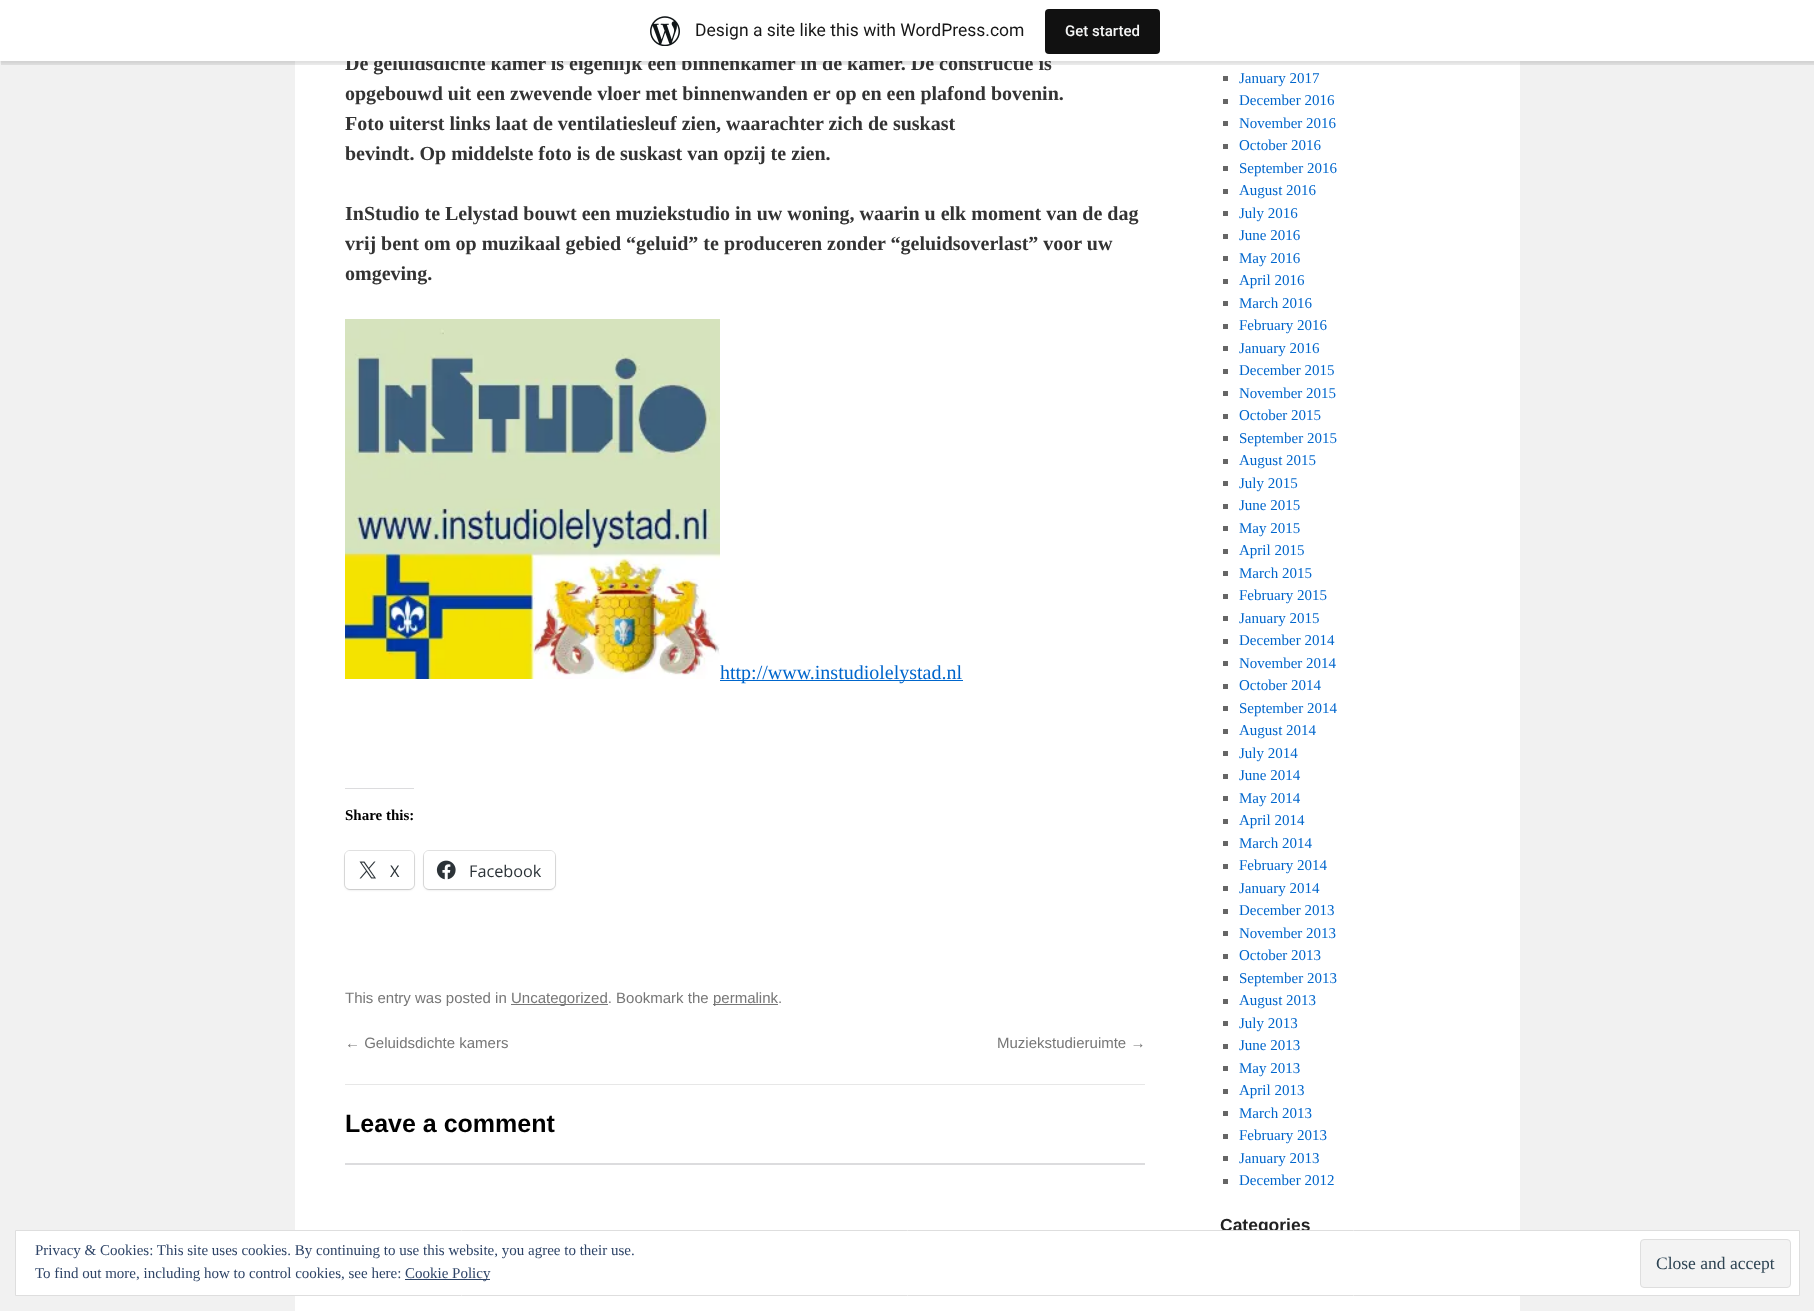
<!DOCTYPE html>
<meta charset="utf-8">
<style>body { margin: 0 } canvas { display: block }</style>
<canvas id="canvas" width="1814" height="1311"></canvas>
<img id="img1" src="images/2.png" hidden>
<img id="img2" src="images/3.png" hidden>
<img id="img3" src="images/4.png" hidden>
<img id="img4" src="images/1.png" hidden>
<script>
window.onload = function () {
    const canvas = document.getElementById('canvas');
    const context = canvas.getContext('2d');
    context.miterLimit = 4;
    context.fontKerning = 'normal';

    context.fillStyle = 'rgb(241, 241, 241)';
    context.fillRect(0, 0, 1814, 1311);
    context.fillStyle = 'rgb(255, 255, 255)';
    context.fillRect(295, 61, 1225, 1250);
    context.fillStyle = 'rgba(0, 0, 0, 0.05)';
    context.filter = 'blur(1px)';
    context.beginPath();
    context.rect(0, 1, 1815, 62);
    context.fill();
    context.filter = 'none';
    context.fillStyle = 'rgba(0, 0, 0, 0.08)';
    context.beginPath();
    context.moveTo(1, 61);
    context.lineTo(1, 65);
    context.lineTo(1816, 65);
    context.lineTo(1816, 4);
    context.lineTo(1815, 4);
    context.lineTo(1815, 61);
    context.closePath();
    context.fill();
    context.drawImage(document.getElementById('img1'), 345, 319, 375, 360);
    context.fillStyle = 'rgb(0, 102, 204)';
    context.fillRect(720, 680, 243, 1);
    context.fillStyle = 'rgb(220, 220, 222)';
    context.fillRect(345, 788, 69, 1);
    context.beginPath();
    context.roundRect(344.5, 850.5, 70, 39, 5.5);
    context.strokeStyle = 'rgb(224, 224, 224)';
    context.stroke();
    context.fillStyle = 'rgba(0, 0, 0, 0.12)';
    context.filter = 'blur(1px)';
    context.beginPath();
    context.roundRect(345, 853, 69, 37, 5);
    context.fill();
    context.filter = 'none';
    context.fillStyle = 'rgb(255, 255, 255)';
    context.beginPath();
    context.roundRect(345, 851, 69, 38, 5);
    context.fill();
    context.drawImage(document.getElementById('img2'), 359, 861, 17, 18);
    context.beginPath();
    context.roundRect(423.5, 850.5, 132, 39, 5.5);
    context.stroke();
    context.fillStyle = 'rgba(0, 0, 0, 0.12)';
    context.filter = 'blur(1px)';
    context.beginPath();
    context.roundRect(424, 853, 131, 37, 5);
    context.fill();
    context.filter = 'none';
    context.fillStyle = 'rgb(255, 255, 255)';
    context.beginPath();
    context.roundRect(424, 851, 131, 38, 5);
    context.fill();
    context.drawImage(document.getElementById('img3'), 436, 860, 20, 20);
    context.fillStyle = 'rgb(119, 119, 119)';
    context.fillRect(511, 1004, 97, 1);
    context.fillRect(713, 1004, 65, 1);
    context.fillStyle = 'rgb(231, 231, 231)';
    context.fillRect(345, 1084, 800, 1);
    context.fillStyle = 'rgb(220, 220, 222)';
    context.fillRect(345, 1163, 800, 2);
    context.fillStyle = 'rgb(102, 102, 102)';
    context.fillRect(1223, 76, 5, 5);
    context.fillRect(1223, 99, 5, 5);
    context.fillRect(1223, 121, 5, 5);
    context.fillRect(1223, 144, 5, 5);
    context.fillRect(1223, 166, 5, 5);
    context.fillRect(1223, 189, 5, 5);
    context.fillRect(1223, 211, 5, 5);
    context.fillRect(1223, 234, 5, 5);
    context.fillRect(1223, 256, 5, 5);
    context.fillRect(1223, 279, 5, 5);
    context.fillRect(1223, 301, 5, 5);
    context.fillRect(1223, 324, 5, 5);
    context.fillRect(1223, 346, 5, 5);
    context.fillRect(1223, 369, 5, 5);
    context.fillRect(1223, 391, 5, 5);
    context.fillRect(1223, 414, 5, 5);
    context.fillRect(1223, 436, 5, 5);
    context.fillRect(1223, 459, 5, 5);
    context.fillRect(1223, 481, 5, 5);
    context.fillRect(1223, 504, 5, 5);
    context.fillRect(1223, 526, 5, 5);
    context.fillRect(1223, 549, 5, 5);
    context.fillRect(1223, 571, 5, 5);
    context.fillRect(1223, 594, 5, 5);
    context.fillRect(1223, 616, 5, 5);
    context.fillRect(1223, 639, 5, 5);
    context.fillRect(1223, 661, 5, 5);
    context.fillRect(1223, 684, 5, 5);
    context.fillRect(1223, 706, 5, 5);
    context.fillRect(1223, 729, 5, 5);
    context.fillRect(1223, 751, 5, 5);
    context.fillRect(1223, 774, 5, 5);
    context.fillRect(1223, 796, 5, 5);
    context.fillRect(1223, 819, 5, 5);
    context.fillRect(1223, 841, 5, 5);
    context.fillRect(1223, 864, 5, 5);
    context.fillRect(1223, 886, 5, 5);
    context.fillRect(1223, 909, 5, 5);
    context.fillRect(1223, 931, 5, 5);
    context.fillRect(1223, 954, 5, 5);
    context.fillRect(1223, 976, 5, 5);
    context.fillRect(1223, 999, 5, 5);
    context.fillRect(1223, 1021, 5, 5);
    context.fillRect(1223, 1044, 5, 5);
    context.fillRect(1223, 1066, 5, 5);
    context.fillRect(1223, 1089, 5, 5);
    context.fillRect(1223, 1111, 5, 5);
    context.fillRect(1223, 1134, 5, 5);
    context.fillRect(1223, 1156, 5, 5);
    context.fillRect(1223, 1179, 5, 5);
    context.font = 'bold 20px Liberation Serif';
    context.fillStyle = 'rgb(51, 51, 51)';
    context.fillText('De geluidsdichte kamer is eigenlijk een binnenkamer in de kamer. De constructie is', 345, 70);
    context.fillStyle = 'rgb(255, 255, 255)';
    context.fillRect(0, 0, 1814, 61);
    context.drawImage(document.getElementById('img4'), 650, 16, 30, 30);
    context.font = '17.5px Roboto';
    context.fillStyle = 'rgb(23, 23, 23)';
    context.fillText('Design a site like this with WordPress.com', 695, 36);
    context.fillStyle = 'rgb(17, 17, 17)';
    context.beginPath();
    context.roundRect(1045, 9, 115, 45, 4);
    context.fill();
    context.font = '500 15px Roboto';
    context.fillStyle = 'rgb(246, 247, 247)';
    context.fillText('Get started', 1065, 36);
    context.font = 'bold 20px Liberation Serif';
    context.fillStyle = 'rgb(51, 51, 51)';
    context.fillText('opgebouwd uit een zwevende vloer met binnenwanden er op en een plafond bovenin.', 345, 100);
    context.fillText('Foto uiterst links laat de ventilatiesleuf zien, waarachter zich de suskast', 345, 130);
    context.fillText('bevindt. Op middelste foto is de suskast van opzij te zien.', 345, 160);
    context.fillText('InStudio te Lelystad bouwt een muziekstudio in uw woning, waarin u elk moment van de dag', 345, 220);
    context.fillText('vrij bent om op muzikaal gebied “geluid” te produceren zonder “geluidsoverlast” voor uw', 345, 250);
    context.fillText('omgeving.', 345, 280);
    context.font = '20px Liberation Serif';
    context.fillStyle = 'rgb(0, 102, 204)';
    context.fillText('http://www.instudiolelystad.nl', 720, 679);
    context.font = 'bold 15px Liberation Serif';
    context.fillStyle = 'rgb(0, 0, 0)';
    context.fillText('Share this:', 345, 820);
    context.font = '16.25px Open Sans';
    context.fillStyle = 'rgb(44, 51, 56)';
    context.fillText('X', 390, 877);
    context.fillText('Facebook', 469, 877);
    context.font = '15px Liberation Sans';
    context.fillStyle = 'rgb(119, 119, 119)';
    context.fillText('This entry was posted in', 345, 1003);
    context.fillText('Uncategorized. Bookmark the', 511, 1003);
    context.fillText('permalink.', 713, 1003);
    context.fillText('← Geluidsdichte kamers', 345, 1048);
    context.fillText('Muziekstudieruimte →', 997, 1048);
    context.font = 'bold 25px Liberation Sans';
    context.fillStyle = 'rgb(0, 0, 0)';
    context.fillText('Leave a comment', 345, 1132);
    context.font = '15px Liberation Serif';
    context.fillStyle = 'rgb(0, 102, 204)';
    context.fillText('January 2017', 1239, 83);
    context.fillText('December 2016', 1239, 105);
    context.fillText('November 2016', 1239, 128);
    context.fillText('October 2016', 1239, 150);
    context.fillText('September 2016', 1239, 173);
    context.fillText('August 2016', 1239, 195);
    context.fillText('July 2016', 1239, 218);
    context.fillText('June 2016', 1239, 240);
    context.fillText('May 2016', 1239, 263);
    context.fillText('April 2016', 1239, 285);
    context.fillText('March 2016', 1239, 308);
    context.fillText('February 2016', 1239, 330);
    context.fillText('January 2016', 1239, 353);
    context.fillText('December 2015', 1239, 375);
    context.fillText('November 2015', 1239, 398);
    context.fillText('October 2015', 1239, 420);
    context.fillText('September 2015', 1239, 443);
    context.fillText('August 2015', 1239, 465);
    context.fillText('July 2015', 1239, 488);
    context.fillText('June 2015', 1239, 510);
    context.fillText('May 2015', 1239, 533);
    context.fillText('April 2015', 1239, 555);
    context.fillText('March 2015', 1239, 578);
    context.fillText('February 2015', 1239, 600);
    context.fillText('January 2015', 1239, 623);
    context.fillText('December 2014', 1239, 645);
    context.fillText('November 2014', 1239, 668);
    context.fillText('October 2014', 1239, 690);
    context.fillText('September 2014', 1239, 713);
    context.fillText('August 2014', 1239, 735);
    context.fillText('July 2014', 1239, 758);
    context.fillText('June 2014', 1239, 780);
    context.fillText('May 2014', 1239, 803);
    context.fillText('April 2014', 1239, 825);
    context.fillText('March 2014', 1239, 848);
    context.fillText('February 2014', 1239, 870);
    context.fillText('January 2014', 1239, 893);
    context.fillText('December 2013', 1239, 915);
    context.fillText('November 2013', 1239, 938);
    context.fillText('October 2013', 1239, 960);
    context.fillText('September 2013', 1239, 983);
    context.fillText('August 2013', 1239, 1005);
    context.fillText('July 2013', 1239, 1028);
    context.fillText('June 2013', 1239, 1050);
    context.fillText('May 2013', 1239, 1073);
    context.fillText('April 2013', 1239, 1095);
    context.fillText('March 2013', 1239, 1118);
    context.fillText('February 2013', 1239, 1140);
    context.fillText('January 2013', 1239, 1163);
    context.fillText('December 2012', 1239, 1185);
    context.font = 'bold 17.5px Liberation Sans';
    context.fillStyle = 'rgb(34, 34, 34)';
    context.fillText('Categories', 1220, 1231);
    context.fillStyle = 'rgb(255, 255, 255)';
    context.beginPath();
    context.rect(15.5, 1230.5, 1784, 65);
    context.fill();
    context.strokeStyle = 'rgb(222, 222, 222)';
    context.stroke();
    context.font = '15px Liberation Serif';
    context.fillStyle = 'rgb(46, 68, 103)';
    context.fillText('Privacy & Cookies: This site uses cookies. By continuing to use this website, you agree to their use.', 35, 1255);
    context.fillStyle = 'rgb(243, 243, 243)';
    context.beginPath();
    context.roundRect(1640.5, 1239.5, 150, 48, 3.5);
    context.fill();
    context.stroke();
    context.font = '17.5px Liberation Serif';
    context.fillStyle = 'rgb(46, 68, 83)';
    context.fillText('Close and accept', 1656, 1269);
    context.font = '15px Liberation Serif';
    context.fillStyle = 'rgb(46, 68, 103)';
    context.fillText('To find out more, including how to control cookies, see here:', 35, 1278);
    context.fillRect(405, 1279, 85, 1);
    context.fillText('Cookie Policy', 405, 1278);
};
</script>
